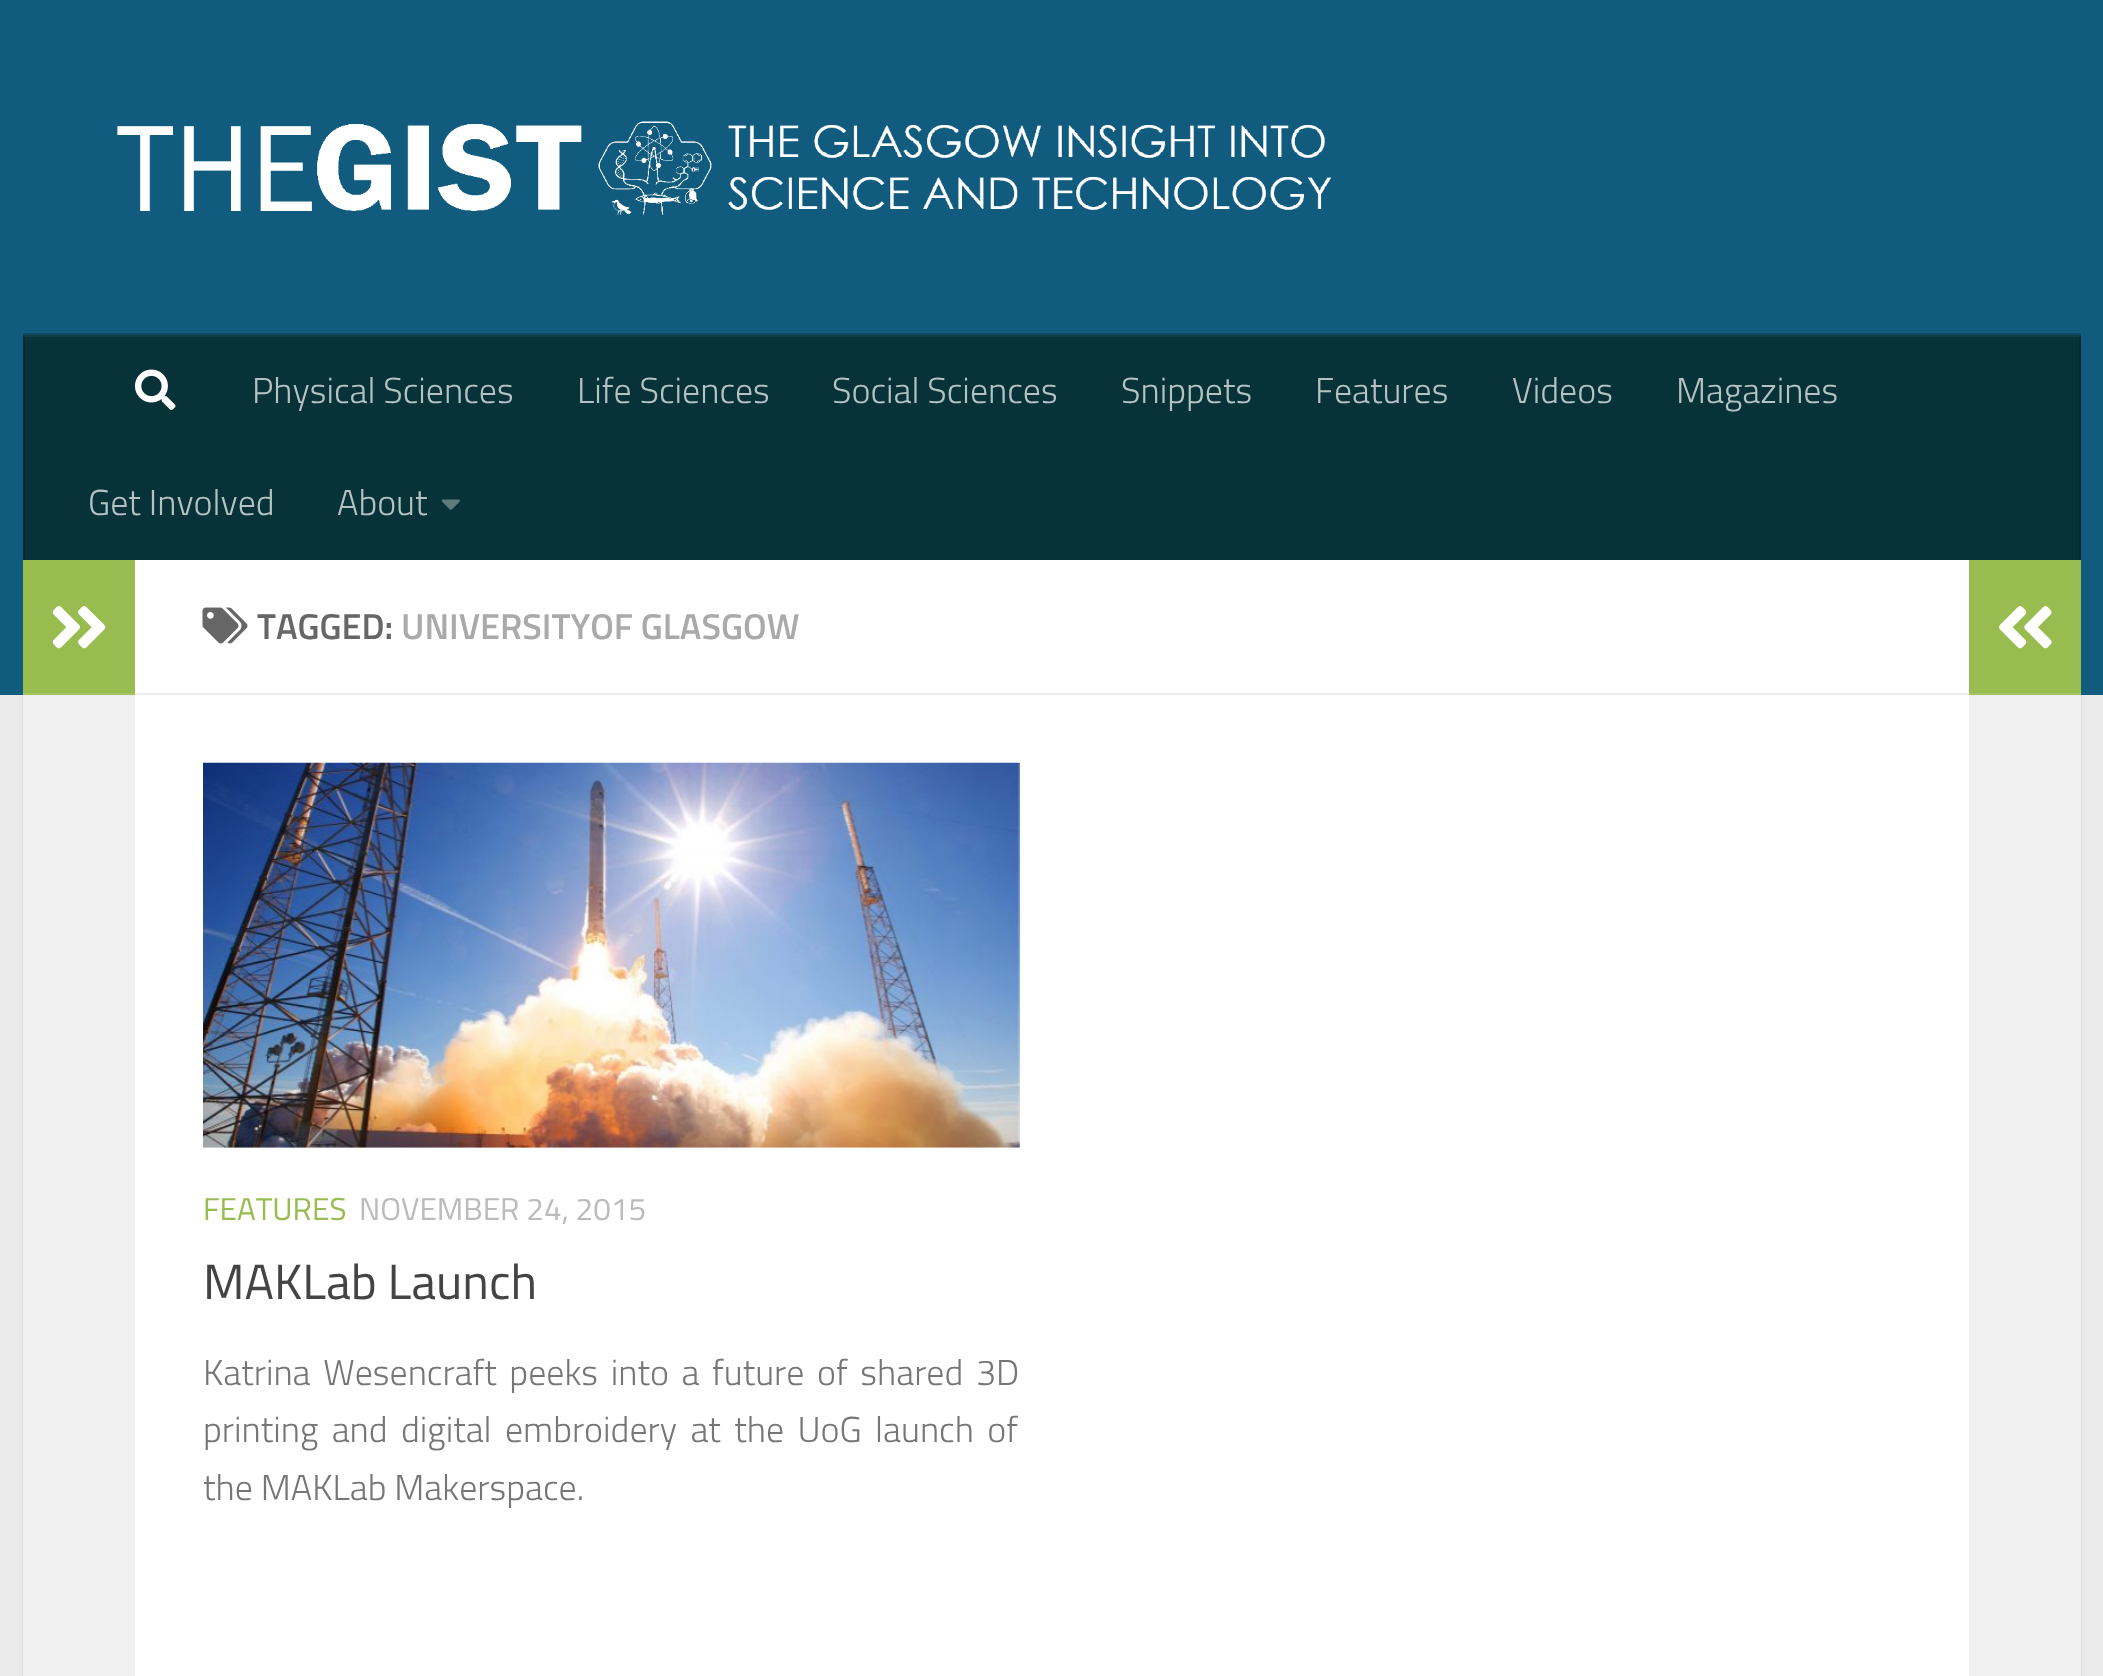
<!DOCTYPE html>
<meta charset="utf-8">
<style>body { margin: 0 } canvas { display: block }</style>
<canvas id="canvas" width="2103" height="1676"></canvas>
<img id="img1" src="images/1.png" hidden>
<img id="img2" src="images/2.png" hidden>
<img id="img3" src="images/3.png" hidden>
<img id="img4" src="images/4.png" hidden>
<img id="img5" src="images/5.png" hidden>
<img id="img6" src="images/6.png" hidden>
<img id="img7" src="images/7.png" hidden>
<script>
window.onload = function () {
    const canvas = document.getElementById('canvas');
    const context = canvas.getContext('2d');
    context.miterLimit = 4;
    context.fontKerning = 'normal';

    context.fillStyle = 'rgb(234, 234, 234)';
    context.fillRect(0, 0, 2103, 1676);
    context.fillStyle = 'rgba(0, 0, 0, 0.1)';
    context.filter = 'blur(1px)';
    context.beginPath();
    context.rect(23, 563, 2058, 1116);
    context.fill();
    context.filter = 'none';
    context.fillStyle = 'rgb(16, 91, 126)';
    context.fillRect(0, 0, 2103, 695);
    context.drawImage(document.getElementById('img1'), 117, 121, 1215, 94);
    context.fillStyle = 'rgb(13, 73, 101)';
    context.fillRect(23, 333, 2058, 2);
    context.fillStyle = 'rgb(7, 51, 56)';
    context.fillRect(25, 337, 2054, 223);
    context.fillStyle = 'rgb(19, 61, 66)';
    context.fillRect(23, 335, 2058, 2);
    context.fillStyle = 'rgb(6, 41, 45)';
    context.fillRect(2079, 335, 2, 225);
    context.fillStyle = 'rgb(18, 52, 56)';
    context.fillRect(2079, 335, 2, 2);
    context.fillStyle = 'rgb(6, 41, 45)';
    context.fillRect(23, 335, 2, 225);
    context.fillStyle = 'rgb(18, 52, 56)';
    context.fillRect(23, 335, 2, 2);
    context.drawImage(document.getElementById('img2'), 135, 369, 41, 41);
    context.drawImage(document.getElementById('img3'), 441, 499, 19, 11);
    context.fillStyle = 'rgb(255, 255, 255)';
    context.fillRect(135, 560, 1834, 1116);
    context.fillStyle = 'rgb(240, 240, 240)';
    context.fillRect(23, 695, 112, 981);
    context.fillStyle = 'rgb(152, 188, 79)';
    context.fillRect(23, 560, 112, 133);
    context.fillStyle = 'rgb(162, 195, 97)';
    context.fillRect(23, 693, 112, 2);
    context.drawImage(document.getElementById('img4'), 52, 606, 54, 43);
    context.fillStyle = 'rgb(238, 238, 238)';
    context.fillRect(135, 693, 1834, 2);
    context.drawImage(document.getElementById('img5'), 202, 607, 46, 37);
    context.drawImage(document.getElementById('img6'), 203, 762, 817, 386);
    context.fillStyle = 'rgb(152, 188, 79)';
    context.fillRect(1969, 560, 112, 133);
    context.fillStyle = 'rgb(162, 195, 97)';
    context.fillRect(1969, 693, 112, 2);
    context.drawImage(document.getElementById('img7'), 1999, 606, 53, 43);
    context.fillStyle = 'rgb(240, 240, 240)';
    context.fillRect(1969, 695, 112, 981);
    context.font = '300 36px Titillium';
    context.fillStyle = 'rgb(181, 194, 195)';
    context.fillText('Physical Sciences', 252, 403);
    context.fillText('Life Sciences', 577, 403);
    context.fillText('Social Sciences', 832, 403);
    context.fillText('Snippets', 1121, 403);
    context.fillText('Features', 1315, 403);
    context.fillText('Videos', 1512, 403);
    context.fillText('Magazines', 1676, 403);
    context.fillText('Get Involved', 88, 515);
    context.fillText('About', 337, 515);
    context.font = '600 36px Titillium';
    context.fillStyle = 'rgb(102, 102, 102)';
    context.fillText('TAGGED:', 257, 639);
    context.fillStyle = 'rgb(170, 170, 170)';
    context.fillText('UNIVERSITYOF GLASGOW', 401, 639);
    context.font = '31.5px Titillium';
    context.fillStyle = 'rgb(152, 188, 79)';
    context.fillText('FEATURES', 203, 1220);
    context.fillStyle = 'rgb(187, 187, 187)';
    context.fillText('NOVEMBER 24, 2015', 359, 1220);
    context.font = '49.5px Titillium';
    context.fillStyle = 'rgb(68, 68, 68)';
    context.fillText('MAKLab Launch', 203, 1299);
    context.wordSpacing = '4.75px';
    context.font = '300 36px Titillium';
    context.fillStyle = 'rgb(118, 118, 118)';
    context.fillText('Katrina Wesencraft peeks into a future of shared 3D', 203, 1385);
    context.wordSpacing = '5.5px';
    context.fillText('printing and digital embroidery at the UoG launch of', 203, 1442);
    context.wordSpacing = '0px';
    context.fillText('the MAKLab Makerspace.', 203, 1500);
};
</script>
